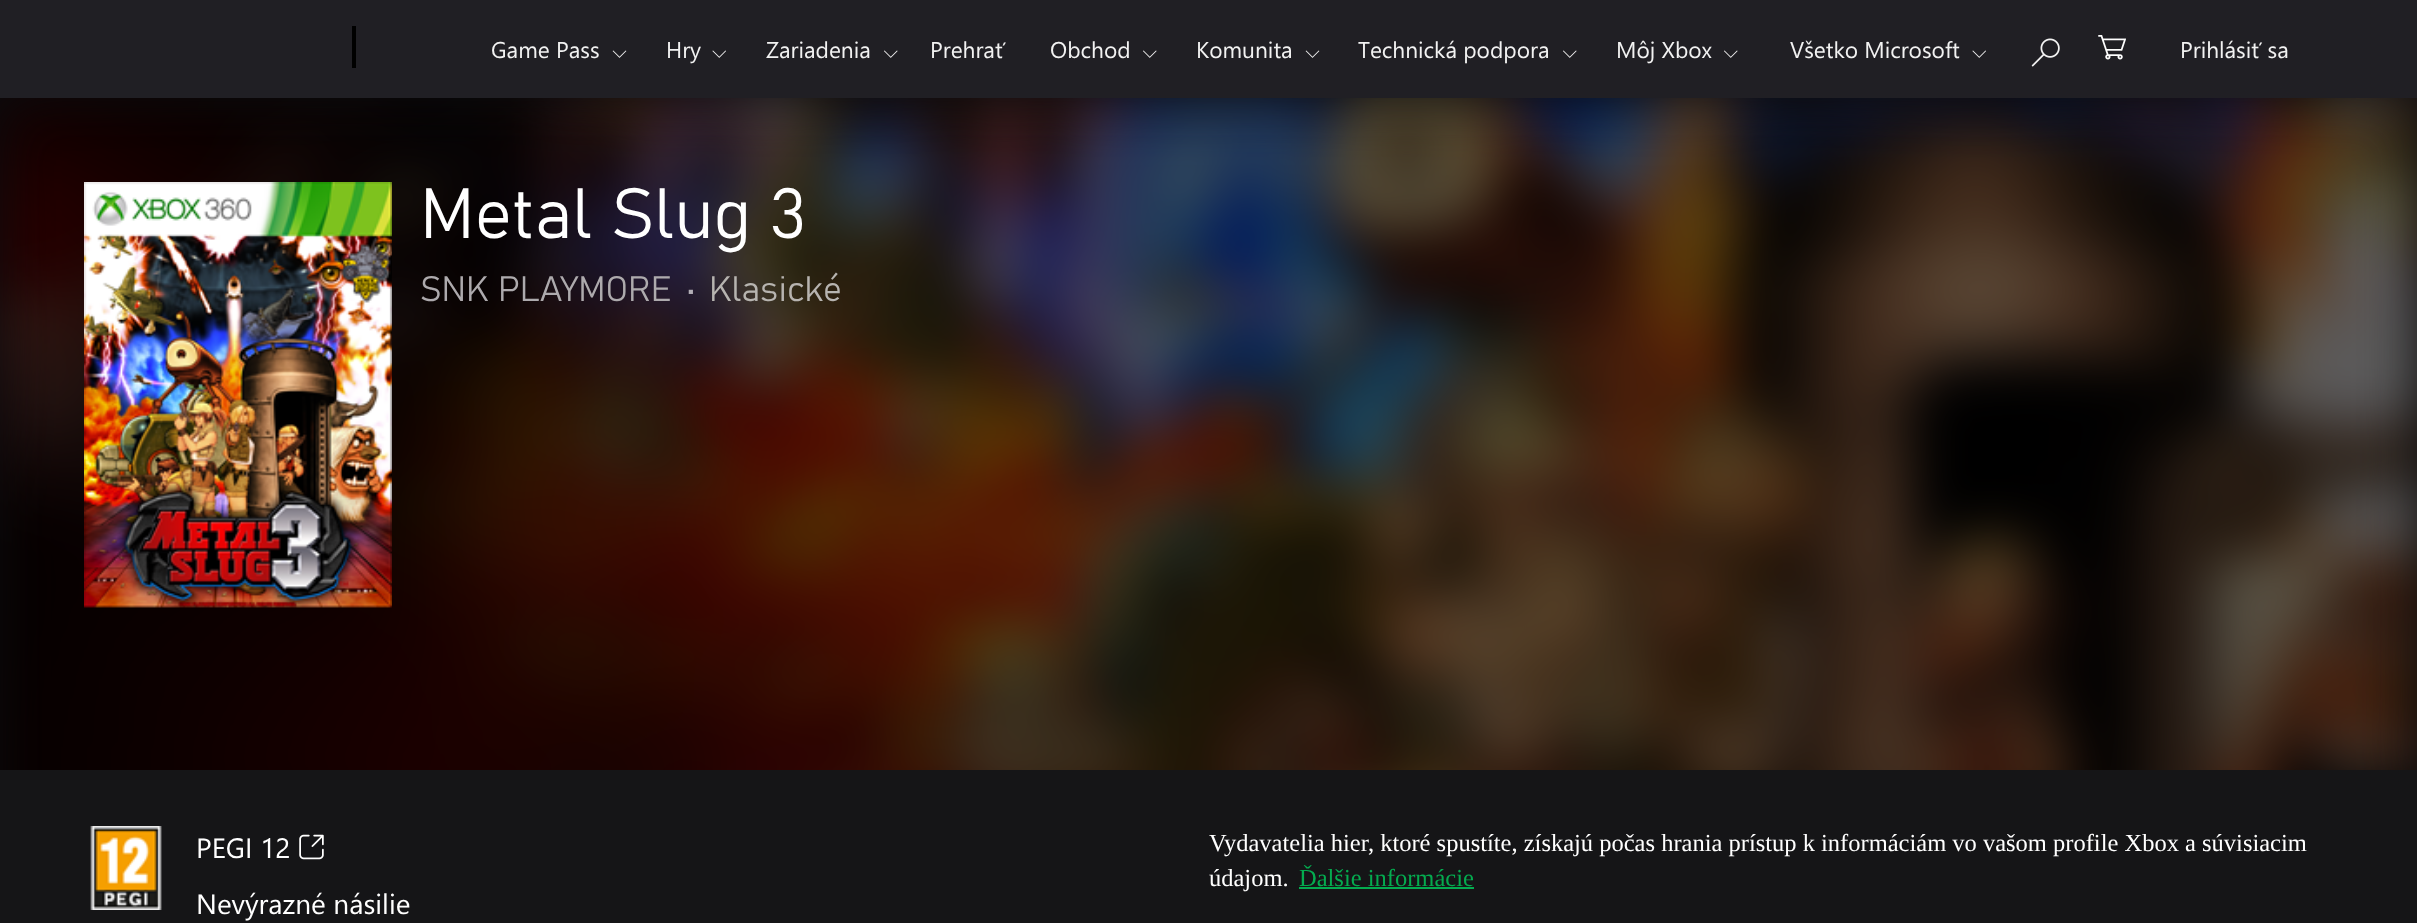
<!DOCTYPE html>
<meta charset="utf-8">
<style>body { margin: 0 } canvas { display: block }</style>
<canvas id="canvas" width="2417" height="923"></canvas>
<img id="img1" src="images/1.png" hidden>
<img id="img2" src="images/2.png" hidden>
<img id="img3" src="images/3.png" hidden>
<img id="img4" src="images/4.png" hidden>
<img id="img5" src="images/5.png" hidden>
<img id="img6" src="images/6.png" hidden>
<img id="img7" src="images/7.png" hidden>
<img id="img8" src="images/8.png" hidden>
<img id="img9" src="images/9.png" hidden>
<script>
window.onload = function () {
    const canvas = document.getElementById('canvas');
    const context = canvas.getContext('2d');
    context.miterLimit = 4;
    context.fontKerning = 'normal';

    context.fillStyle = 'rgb(32, 31, 36)';
    context.fillRect(0, 0, 2417, 923);
    context.fillStyle = 'rgb(12, 11, 13)';
    context.fillRect(0, 98, 2417, 672);
    context.fillStyle = 'rgb(0, 0, 0)';
    context.fillRect(352, 26, 4, 42);
    context.drawImage(document.getElementById('img1'), 612, 50, 15, 8);
    context.drawImage(document.getElementById('img2'), 712, 50, 14, 8);
    context.drawImage(document.getElementById('img3'), 884, 50, 14, 8);
    context.drawImage(document.getElementById('img3'), 1143, 50, 14, 8);
    context.drawImage(document.getElementById('img1'), 1305, 50, 15, 8);
    context.drawImage(document.getElementById('img3'), 1563, 50, 14, 8);
    context.drawImage(document.getElementById('img3'), 1724, 50, 14, 8);
    context.drawImage(document.getElementById('img2'), 1972, 50, 14, 8);
    context.drawImage(document.getElementById('img4'), 2031, 38, 29, 29);
    context.drawImage(document.getElementById('img5'), 2098, 35, 28, 25);
    context.drawImage(document.getElementById('img6'), 0, 98, 2417, 672);
    context.drawImage(document.getElementById('img7'), 84, 182, 308, 426);
    context.fillStyle = 'rgb(21, 21, 23)';
    context.fillRect(0, 770, 2417, 153);
    context.drawImage(document.getElementById('img8'), 90, 826, 72, 84);
    context.drawImage(document.getElementById('img9'), 299, 834, 25, 26);
    context.fillStyle = 'rgb(4, 171, 79)';
    context.fillRect(1299, 887, 175, 2);
    context.font = '22.75px Segoe UI';
    context.fillStyle = 'rgb(242, 242, 242)';
    context.fillText('Game Pass', 491, 58);
    context.fillText('Hry', 666, 58);
    context.fillText('Zariadenia', 766, 58);
    context.fillText('Prehrať', 930, 58);
    context.fillText('Obchod', 1050, 58);
    context.fillText('Komunita', 1196, 58);
    context.fillText('Technická podpora', 1358, 58);
    context.fillText('Môj Xbox', 1616, 58);
    context.fillText('Všetko Microsoft', 1790, 58);
    context.fillText('Prihlásiť sa', 2180, 58);
    context.font = '300 70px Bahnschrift';
    context.fillStyle = 'rgb(255, 255, 255)';
    context.fillText('Metal Slug 3', 420, 238);
    context.font = '300 35px Bahnschrift';
    context.fillStyle = 'rgb(173, 170, 173)';
    context.fillText('SNK PLAYMORE', 420, 301);
    context.fillStyle = 'rgb(178, 175, 182)';
    context.fillText('•', 686, 301);
    context.fillStyle = 'rgb(183, 180, 176)';
    context.fillText('Klasické', 709, 301);
    context.font = '28px Segoe UI';
    context.fillStyle = 'rgb(255, 255, 255)';
    context.fillText('PEGI 12', 196, 858);
    context.fillText('Nevýrazné násilie', 196, 914);
    context.font = '24.5px Liberation Serif';
    context.fillText('Vydavatelia hier, ktoré spustíte, získajú počas hrania prístup k informáciám vo vašom profile Xbox a súvisiacim', 1209, 851);
    context.fillText('údajom.', 1209, 886);
    context.fillStyle = 'rgb(4, 171, 79)';
    context.fillText('Ďalšie informácie', 1299, 886);
};
</script>
